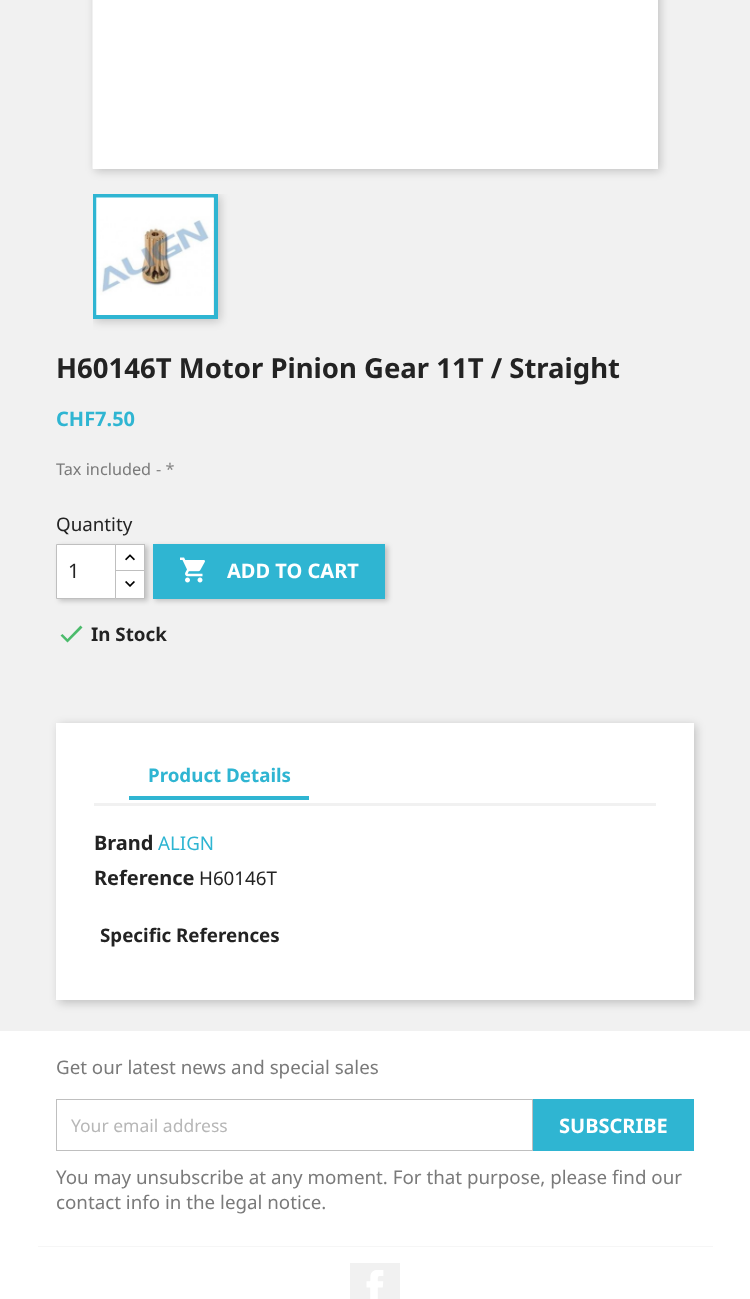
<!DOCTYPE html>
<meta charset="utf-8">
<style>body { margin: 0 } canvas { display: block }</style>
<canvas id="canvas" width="750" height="1299"></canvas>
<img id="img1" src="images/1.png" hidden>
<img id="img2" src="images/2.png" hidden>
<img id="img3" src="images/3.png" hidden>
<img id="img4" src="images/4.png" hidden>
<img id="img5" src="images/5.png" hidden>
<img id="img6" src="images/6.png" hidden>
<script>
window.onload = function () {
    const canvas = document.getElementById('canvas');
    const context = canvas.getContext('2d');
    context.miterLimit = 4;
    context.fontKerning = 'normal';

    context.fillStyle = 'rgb(255, 255, 255)';
    context.fillRect(0, 0, 750, 1299);
    context.fillStyle = 'rgb(241, 241, 241)';
    context.fillRect(0, 0, 750, 1031);
    context.fillStyle = 'rgba(0, 0, 0, 0.2)';
    context.filter = 'blur(5px)';
    context.beginPath();
    context.rect(95, -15, 565, 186);
    context.fill();
    context.filter = 'none';
    context.drawImage(document.getElementById('img1'), 92, 0, 1, 169);
    context.fillStyle = 'rgb(255, 255, 255)';
    context.fillRect(93, 0, 565, 169);
    context.save();
    context.beginPath();
    context.rect(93, 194, 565, 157);
    context.clip();
    context.fillStyle = 'rgba(0, 0, 0, 0.2)';
    context.filter = 'blur(5px)';
    context.beginPath();
    context.rect(95, 196, 125, 125);
    context.fill();
    context.filter = 'none';
    context.restore();
    context.strokeStyle = 'rgb(47, 181, 210)';
    context.lineWidth = 4;
    context.strokeRect(95, 196, 121, 121);
    context.drawImage(document.getElementById('img2'), 96, 197, 118, 118);
    context.fillStyle = 'rgba(0, 0, 0, 0.2)';
    context.filter = 'blur(2.5px)';
    context.beginPath();
    context.rect(155, 546, 233, 55);
    context.fill();
    context.filter = 'none';
    context.fillStyle = 'rgb(47, 181, 210)';
    context.fillRect(153, 544, 232, 55);
    context.fillStyle = 'rgba(0, 0, 0, 0.2)';
    context.filter = 'blur(2.5px)';
    context.beginPath();
    context.rect(59, 546, 89, 55);
    context.fill();
    context.filter = 'none';
    context.fillStyle = 'rgb(255, 255, 255)';
    context.fillRect(116, 545, 28, 25);
    context.strokeStyle = 'rgb(191, 191, 191)';
    context.lineWidth = 1;
    context.strokeRect(115.5, 544.5, 29, 28);
    context.beginPath();
    context.rect(115.5, 570.5, 29, 28);
    context.fill();
    context.stroke();
    context.beginPath();
    context.rect(56.5, 544.5, 59, 54);
    context.fill();
    context.stroke();
    context.drawImage(document.getElementById('img3'), 125, 554, 10, 7);
    context.drawImage(document.getElementById('img4'), 125, 581, 10, 6);
    context.drawImage(document.getElementById('img5'), 180, 557, 25, 26);
    context.fillStyle = 'rgb(76, 187, 108)';
    context.beginPath();
    context.moveTo(67.5, 639);
    context.lineTo(80.5, 625.5);
    context.lineTo(82.5, 627.5);
    context.lineTo(67.5, 642.5);
    context.lineTo(60.5, 635.5);
    context.lineTo(62.5, 634);
    context.closePath();
    context.fill();
    context.fillStyle = 'rgba(0, 0, 0, 0.2)';
    context.filter = 'blur(5px)';
    context.beginPath();
    context.rect(59, 725, 637, 278);
    context.fill();
    context.filter = 'none';
    context.fillStyle = 'rgb(255, 255, 255)';
    context.fillRect(56, 723, 638, 277);
    context.fillStyle = 'rgb(241, 241, 241)';
    context.fillRect(94, 803, 562, 3);
    context.fillStyle = 'rgb(47, 181, 210)';
    context.fillRect(129, 796, 180, 4);
    context.fillStyle = 'rgb(246, 246, 246)';
    context.fillRect(38, 1246, 675, 1);
    context.strokeRect(56.5, 1099.5, 476, 51);
    context.fillStyle = 'rgb(47, 181, 210)';
    context.fillRect(533, 1099, 161, 52);
    context.fillStyle = 'rgb(241, 241, 241)';
    context.fillRect(350, 1263, 50, 36);
    context.drawImage(document.getElementById('img6'), 366, 1270, 18, 29);
    context.font = 'bold 27.5px Noto Sans';
    context.fillStyle = 'rgb(35, 35, 35)';
    context.fillText('H60146T Motor Pinion Gear 11T / Straight', 56, 378);
    context.font = 'bold 20px Noto Sans';
    context.fillStyle = 'rgb(47, 181, 210)';
    context.fillText('CHF7.50', 56, 426);
    context.font = '16.25px Noto Sans';
    context.fillStyle = 'rgb(122, 122, 122)';
    context.fillText('Tax included', 56, 475);
    context.fillStyle = 'rgb(135, 135, 135)';
    context.fillText('- *', 156, 475);
    context.font = '18.75px Noto Sans';
    context.fillStyle = 'rgb(35, 35, 35)';
    context.fillText('Quantity', 56, 531);
    context.font = '20px Noto Sans';
    context.fillText('1', 68, 578);
    context.font = 'bold 20px Noto Sans';
    context.fillStyle = 'rgb(255, 255, 255)';
    context.fillText('ADD TO CART', 227, 578);
    context.font = 'bold 18.75px Noto Sans';
    context.fillStyle = 'rgb(35, 35, 35)';
    context.fillText('In Stock', 91, 641);
    context.fillStyle = 'rgb(47, 181, 210)';
    context.fillText('Product Details', 148, 782);
    context.font = 'bold 20px Noto Sans';
    context.fillStyle = 'rgb(35, 35, 35)';
    context.fillText('Brand', 94, 850);
    context.font = '18.75px Noto Sans';
    context.fillStyle = 'rgb(47, 181, 210)';
    context.fillText('ALIGN', 158, 850);
    context.font = 'bold 20px Noto Sans';
    context.fillStyle = 'rgb(35, 35, 35)';
    context.fillText('Reference', 94, 885);
    context.font = '18.75px Noto Sans';
    context.fillText('H60146T', 199, 885);
    context.font = 'bold 18.75px Noto Sans';
    context.fillText('Specific References', 100, 942);
    context.font = '18.75px Noto Sans';
    context.fillStyle = 'rgb(122, 122, 122)';
    context.fillText('Get our latest news and special sales', 56, 1074);
    context.font = '17.5px Noto Sans';
    context.fillStyle = 'rgb(183, 183, 183)';
    context.fillText('Your email address', 71, 1132);
    context.font = 'bold 20px Noto Sans';
    context.fillStyle = 'rgb(255, 255, 255)';
    context.fillText('SUBSCRIBE', 559, 1133);
    context.font = '18.75px Noto Sans';
    context.fillStyle = 'rgb(122, 122, 122)';
    context.fillText('You may unsubscribe at any moment. For that purpose, please find our', 56, 1184);
    context.fillText('contact info in the legal notice.', 56, 1209);
};
</script>
